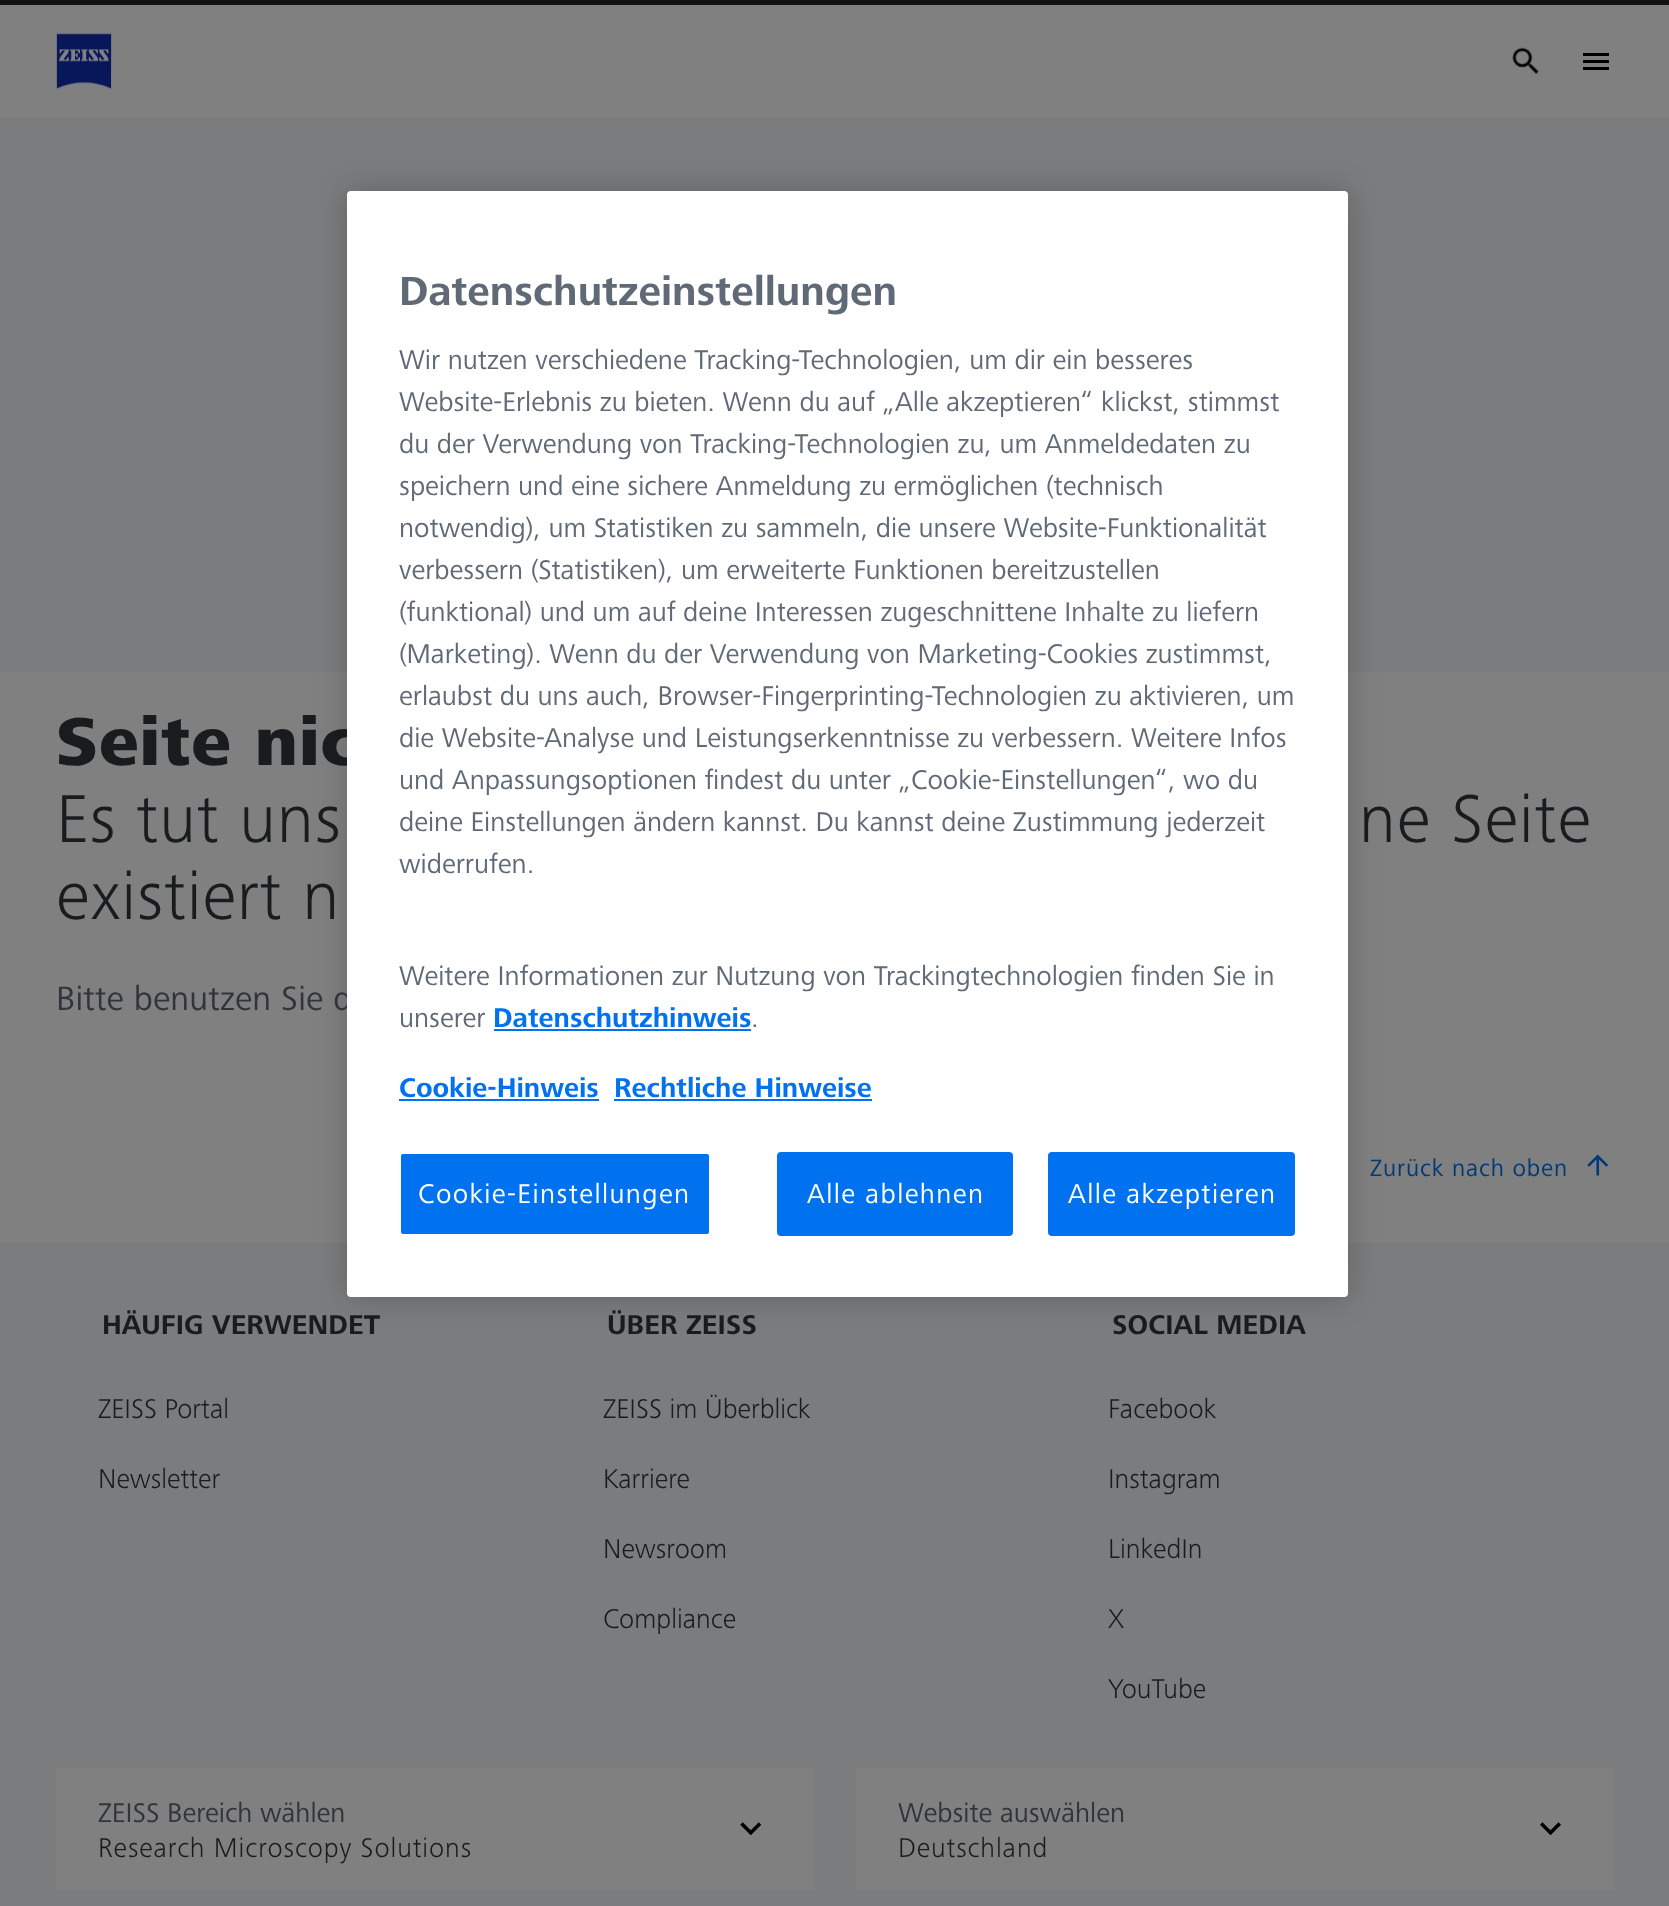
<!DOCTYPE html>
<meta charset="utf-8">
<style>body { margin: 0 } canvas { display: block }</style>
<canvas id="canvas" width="1669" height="1906"></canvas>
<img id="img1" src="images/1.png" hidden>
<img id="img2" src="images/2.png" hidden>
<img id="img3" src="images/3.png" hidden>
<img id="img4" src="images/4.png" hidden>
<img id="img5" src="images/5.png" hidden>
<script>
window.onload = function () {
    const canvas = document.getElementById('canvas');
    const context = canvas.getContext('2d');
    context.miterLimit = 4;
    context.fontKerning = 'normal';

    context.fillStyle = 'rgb(128, 128, 128)';
    context.fillRect(0, 0, 1669, 1906);
    context.fillStyle = 'rgb(16, 18, 20)';
    context.fillRect(0, 0, 1669, 5);
    context.drawImage(document.getElementById('img1'), 56, 33, 56, 56);
    context.drawImage(document.getElementById('img2'), 1512, 47, 27, 27);
    context.fillStyle = 'rgb(0, 0, 0)';
    context.fillRect(1583, 53, 26, 3);
    context.fillRect(1583, 60, 26, 3);
    context.fillRect(1583, 67, 26, 3);
    context.fillStyle = 'rgb(123, 124, 125)';
    context.fillRect(0, 117, 1669, 555);
    context.fillRect(0, 1243, 1669, 663);
    context.fillStyle = 'rgba(0, 0, 0, 0.2)';
    context.filter = 'blur(16px)';
    context.beginPath();
    context.roundRect(347, 191, 1001, 1106, 4);
    context.fill();
    context.filter = 'none';
    context.drawImage(document.getElementById('img3'), 1587, 1154, 21, 22);
    context.fillStyle = 'rgb(128, 128, 128)';
    context.fillRect(56, 1768, 758, 122);
    context.drawImage(document.getElementById('img4'), 740, 1822, 22, 14);
    context.fillRect(856, 1768, 758, 122);
    context.drawImage(document.getElementById('img5'), 1540, 1822, 21, 14);
    context.letterSpacing = '1px';
    context.font = '900 70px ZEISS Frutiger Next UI';
    context.fillStyle = 'rgb(25, 28, 31)';
    context.fillText('Seite nic', 56, 765);
    context.font = '300 70px ZEISS Frutiger Next UI';
    context.fillText('Es tut uns', 56, 842);
    context.fillText('ne Seite', 1359, 842);
    context.fillText('existiert n', 56, 919);
    context.letterSpacing = '0.2px';
    context.font = '35px ZEISS Frutiger Next UI';
    context.fillStyle = 'rgb(48, 53, 59)';
    context.fillText('Bitte benutzen Sie d', 56, 1010);
    context.fillStyle = 'rgb(255, 255, 255)';
    context.beginPath();
    context.roundRect(347, 191, 1001, 1106, 4);
    context.fill();
    context.fillStyle = 'rgb(0, 114, 239)';
    context.beginPath();
    context.roundRect(1049, 1153, 245, 82, 3);
    context.fill();
    context.strokeStyle = 'rgb(0, 114, 239)';
    context.lineWidth = 2;
    context.stroke();
    context.letterSpacing = '1.4px';
    context.font = '28px ZEISS Frutiger Next UI';
    context.fillStyle = 'rgb(255, 255, 255)';
    context.fillText('Alle akzeptieren', 1068, 1203);
    context.fillStyle = 'rgb(0, 114, 239)';
    context.beginPath();
    context.roundRect(778, 1153, 234, 82, 3);
    context.fill();
    context.stroke();
    context.fillStyle = 'rgb(255, 255, 255)';
    context.fillText('Alle ablehnen', 807, 1203);
    context.fillStyle = 'rgb(0, 114, 239)';
    context.beginPath();
    context.roundRect(400, 1153, 310, 82, 3);
    context.fill();
    context.strokeStyle = 'rgb(255, 255, 255)';
    context.stroke();
    context.fillStyle = 'rgb(255, 255, 255)';
    context.fillText('Cookie-Einstellungen', 418, 1203);
    context.letterSpacing = '0px';
    context.font = 'bold 28px ZEISS Frutiger Next UI';
    context.fillStyle = 'rgb(0, 114, 239)';
    context.fillText('Rechtliche Hinweise', 614, 1097);
    context.fillRect(614, 1099, 258, 2);
    context.fillText('Cookie-Hinweis', 399, 1097);
    context.fillRect(399, 1099, 200, 2);
    context.font = '28px ZEISS Frutiger Next UI';
    context.fillStyle = 'rgb(96, 106, 118)';
    context.fillText('.', 751, 1027);
    context.font = 'bold 28px ZEISS Frutiger Next UI';
    context.fillStyle = 'rgb(0, 114, 239)';
    context.fillText('Datenschutzhinweis', 493, 1027);
    context.fillRect(494, 1029, 257, 2);
    context.font = '28px ZEISS Frutiger Next UI';
    context.fillStyle = 'rgb(96, 106, 118)';
    context.fillText('unserer', 399, 1027);
    context.fillText('Weitere Informationen zur Nutzung von Trackingtechnologien finden Sie in', 399, 985);
    context.fillText('widerrufen.', 399, 873);
    context.fillText('deine Einstellungen ändern kannst. Du kannst deine Zustimmung jederzeit', 399, 831);
    context.fillText('und Anpassungsoptionen findest du unter „Cookie-Einstellungen“, wo du', 399, 789);
    context.fillText('die Website-Analyse und Leistungserkenntnisse zu verbessern. Weitere Infos', 399, 747);
    context.fillText('erlaubst du uns auch, Browser-Fingerprinting-Technologien zu aktivieren, um', 399, 705);
    context.fillText('(Marketing). Wenn du der Verwendung von Marketing-Cookies zustimmst,', 399, 663);
    context.fillText('(funktional) und um auf deine Interessen zugeschnittene Inhalte zu liefern', 399, 621);
    context.fillText('verbessern (Statistiken), um erweiterte Funktionen bereitzustellen', 399, 579);
    context.fillText('notwendig), um Statistiken zu sammeln, die unsere Website-Funktionalität', 399, 537);
    context.fillText('speichern und eine sichere Anmeldung zu ermöglichen (technisch', 399, 495);
    context.fillText('du der Verwendung von Tracking-Technologien zu, um Anmeldedaten zu', 399, 453);
    context.fillText('Website-Erlebnis zu bieten. Wenn du auf „Alle akzeptieren“ klickst, stimmst', 399, 411);
    context.fillText('Wir nutzen verschiedene Tracking-Technologien, um dir ein besseres', 399, 369);
    context.font = 'bold 42px ZEISS Frutiger Next UI';
    context.fillText('Datenschutzeinstellungen', 399, 305);
    context.letterSpacing = '0.9px';
    context.font = '24.5px ZEISS Frutiger Next UI';
    context.fillStyle = 'rgb(0, 57, 120)';
    context.fillText('Zurück nach oben', 1370, 1176);
    context.letterSpacing = '0.1px';
    context.font = 'bold 28px ZEISS Frutiger Next UI';
    context.fillStyle = 'rgb(25, 28, 31)';
    context.fillText('HÄUFIG VERWENDET', 102, 1334);
    context.letterSpacing = '0px';
    context.font = '300 28px ZEISS Frutiger Next UI';
    context.fillText('ZEISS Portal', 98, 1418);
    context.fillText('Newsletter', 98, 1488);
    context.letterSpacing = '0.1px';
    context.font = 'bold 28px ZEISS Frutiger Next UI';
    context.fillText('ÜBER ZEISS', 607, 1334);
    context.letterSpacing = '0px';
    context.font = '300 28px ZEISS Frutiger Next UI';
    context.fillText('ZEISS im Überblick', 603, 1418);
    context.fillText('Karriere', 603, 1488);
    context.fillText('Newsroom', 603, 1558);
    context.fillText('Compliance', 603, 1628);
    context.letterSpacing = '0.1px';
    context.font = 'bold 28px ZEISS Frutiger Next UI';
    context.fillText('SOCIAL MEDIA', 1112, 1334);
    context.letterSpacing = '0px';
    context.font = '300 28px ZEISS Frutiger Next UI';
    context.fillText('Facebook', 1108, 1418);
    context.fillText('Instagram', 1108, 1488);
    context.fillText('LinkedIn', 1108, 1558);
    context.fillText('X', 1108, 1628);
    context.fillText('YouTube', 1108, 1698);
    context.font = '28px ZEISS Frutiger Next UI';
    context.fillStyle = 'rgb(48, 53, 59)';
    context.fillText('ZEISS Bereich wählen', 98, 1822);
    context.letterSpacing = '0.9px';
    context.font = '300 28px ZEISS Frutiger Next UI';
    context.fillStyle = 'rgb(25, 28, 31)';
    context.fillText('Research Microscopy Solutions', 98, 1857);
    context.letterSpacing = '0px';
    context.font = '28px ZEISS Frutiger Next UI';
    context.fillStyle = 'rgb(48, 53, 59)';
    context.fillText('Website auswählen', 898, 1822);
    context.letterSpacing = '0.9px';
    context.font = '300 28px ZEISS Frutiger Next UI';
    context.fillStyle = 'rgb(25, 28, 31)';
    context.fillText('Deutschland', 898, 1857);
};
</script>
